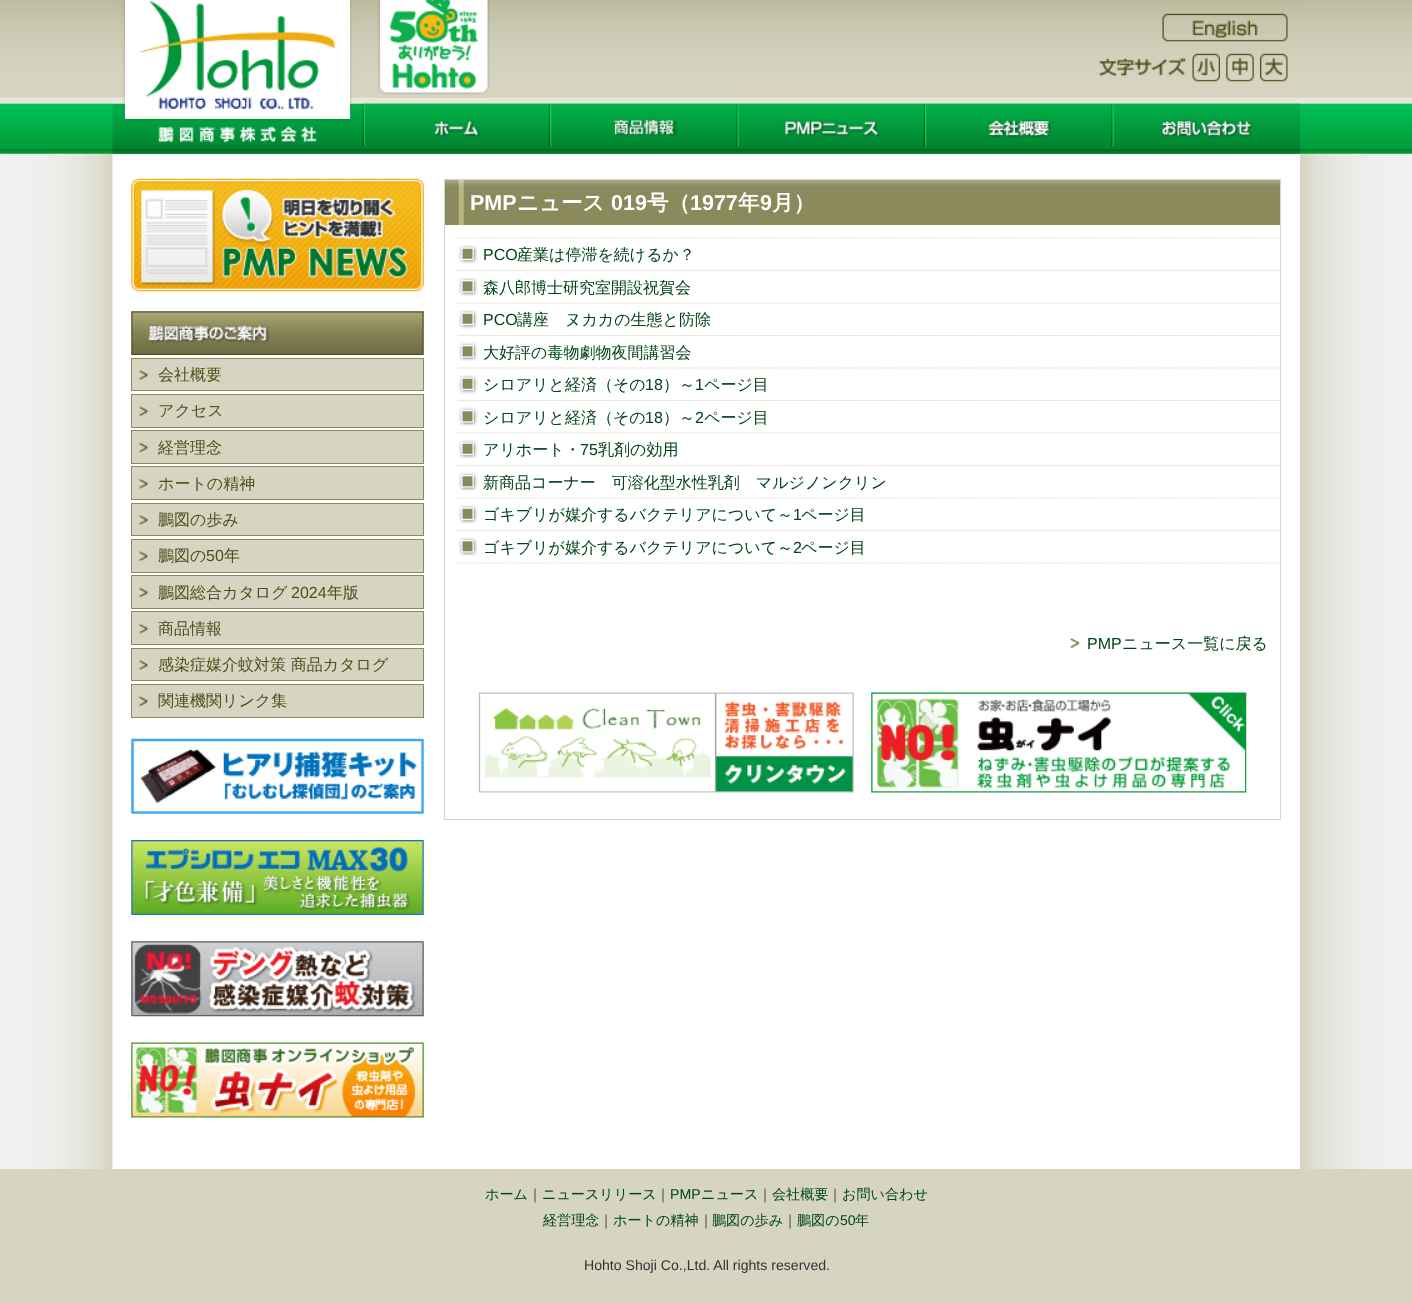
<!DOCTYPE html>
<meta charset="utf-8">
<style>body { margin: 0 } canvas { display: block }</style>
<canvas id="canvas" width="1412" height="1303"></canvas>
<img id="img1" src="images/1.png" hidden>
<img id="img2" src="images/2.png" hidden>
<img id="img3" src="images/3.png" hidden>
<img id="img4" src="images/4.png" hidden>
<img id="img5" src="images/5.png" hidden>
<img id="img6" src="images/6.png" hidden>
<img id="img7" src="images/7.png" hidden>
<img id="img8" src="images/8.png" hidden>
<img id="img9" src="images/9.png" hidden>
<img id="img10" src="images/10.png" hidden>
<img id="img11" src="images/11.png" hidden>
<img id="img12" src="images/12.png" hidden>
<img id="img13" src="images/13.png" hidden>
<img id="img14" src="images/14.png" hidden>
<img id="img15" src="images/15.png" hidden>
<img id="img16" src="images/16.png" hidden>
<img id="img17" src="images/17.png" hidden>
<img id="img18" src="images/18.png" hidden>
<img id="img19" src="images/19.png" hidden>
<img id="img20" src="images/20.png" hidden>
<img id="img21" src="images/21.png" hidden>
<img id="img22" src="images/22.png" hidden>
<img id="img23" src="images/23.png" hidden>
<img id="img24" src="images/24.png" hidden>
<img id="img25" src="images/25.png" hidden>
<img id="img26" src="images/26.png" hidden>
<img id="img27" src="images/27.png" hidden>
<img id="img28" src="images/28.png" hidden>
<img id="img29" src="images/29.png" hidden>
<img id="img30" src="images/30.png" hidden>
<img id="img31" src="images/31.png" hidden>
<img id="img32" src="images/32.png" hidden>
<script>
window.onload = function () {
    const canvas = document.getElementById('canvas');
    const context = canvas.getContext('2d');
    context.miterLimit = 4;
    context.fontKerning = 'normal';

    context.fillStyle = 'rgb(255, 255, 255)';
    context.fillRect(0, 0, 1412, 1303);
    context.drawImage(document.getElementById('img1'), 0, 153, 1412, 1016);
    context.drawImage(document.getElementById('img2'), 0, 0, 1412, 154);
    context.drawImage(document.getElementById('img3'), 112, 0, 1188, 154);
    context.drawImage(document.getElementById('img4'), 125, 0, 225, 119);
    context.drawImage(document.getElementById('img5'), 375, 0, 117, 98);
    context.drawImage(document.getElementById('img6'), 1162, 13, 126, 29);
    context.drawImage(document.getElementById('img7'), 1098, 57, 88, 20);
    context.drawImage(document.getElementById('img8'), 1192, 53, 28, 29);
    context.drawImage(document.getElementById('img9'), 1226, 53, 28, 29);
    context.drawImage(document.getElementById('img10'), 1260, 53, 28, 29);
    context.drawImage(document.getElementById('img11'), 362, 103, 188, 46);
    context.drawImage(document.getElementById('img12'), 550, 103, 188, 46);
    context.drawImage(document.getElementById('img13'), 737, 103, 188, 46);
    context.drawImage(document.getElementById('img14'), 925, 103, 188, 46);
    context.drawImage(document.getElementById('img15'), 1112, 103, 188, 46);
    context.drawImage(document.getElementById('img16'), 131, 178, 293, 114);
    context.drawImage(document.getElementById('img17'), 131, 311, 293, 44);
    context.fillStyle = 'rgb(214, 213, 193)';
    context.fillRect(132, 359, 291, 31);
    context.drawImage(document.getElementById('img18'), 138, 370, 10, 10);
    context.strokeStyle = 'rgb(139, 138, 92)';
    context.strokeRect(131.5, 358.5, 292, 32);
    context.fillRect(132, 395, 291, 32);
    context.drawImage(document.getElementById('img19'), 138, 406, 10, 11);
    context.strokeRect(131.5, 394.5, 292, 33);
    context.fillRect(132, 431, 291, 32);
    context.drawImage(document.getElementById('img20'), 138, 442, 10, 11);
    context.strokeRect(131.5, 430.5, 292, 33);
    context.fillRect(132, 467, 291, 32);
    context.drawImage(document.getElementById('img21'), 138, 478, 10, 11);
    context.strokeRect(131.5, 466.5, 292, 33);
    context.fillRect(132, 504, 291, 31);
    context.drawImage(document.getElementById('img18'), 138, 515, 10, 10);
    context.strokeRect(131.5, 503.5, 292, 32);
    context.fillRect(132, 540, 291, 32);
    context.drawImage(document.getElementById('img19'), 138, 551, 10, 11);
    context.strokeRect(131.5, 539.5, 292, 33);
    context.fillRect(132, 576, 291, 32);
    context.drawImage(document.getElementById('img20'), 138, 587, 10, 11);
    context.strokeRect(131.5, 575.5, 292, 33);
    context.fillRect(132, 612, 291, 32);
    context.drawImage(document.getElementById('img21'), 138, 623, 10, 11);
    context.strokeRect(131.5, 611.5, 292, 33);
    context.fillRect(132, 649, 291, 31);
    context.drawImage(document.getElementById('img18'), 138, 660, 10, 10);
    context.strokeRect(131.5, 648.5, 292, 32);
    context.fillRect(132, 685, 291, 32);
    context.drawImage(document.getElementById('img19'), 138, 696, 10, 11);
    context.strokeRect(131.5, 684.5, 292, 33);
    context.drawImage(document.getElementById('img22'), 131, 738, 293, 76);
    context.drawImage(document.getElementById('img23'), 131, 840, 293, 75);
    context.drawImage(document.getElementById('img24'), 131, 941, 293, 76);
    context.drawImage(document.getElementById('img25'), 131, 1042, 293, 76);
    context.strokeStyle = 'rgb(214, 213, 193)';
    context.strokeRect(444.5, 179.5, 836, 640);
    context.drawImage(document.getElementById('img26'), 445, 180, 835, 45);
    context.beginPath();
    context.moveTo(457.5, 238);
    context.lineTo(1280, 238);
    context.lineWidth = 1.2;
    context.setLineDash([1.25, 1.25]);
    context.stroke();
    context.drawImage(document.getElementById('img27'), 458, 245, 20, 19);
    context.beginPath();
    context.moveTo(457.5, 270.5);
    context.lineTo(1280, 270.5);
    context.stroke();
    context.drawImage(document.getElementById('img28'), 458, 277, 20, 19);
    context.beginPath();
    context.moveTo(457.5, 303);
    context.lineTo(1280, 303);
    context.stroke();
    context.drawImage(document.getElementById('img27'), 458, 310, 20, 19);
    context.beginPath();
    context.moveTo(457.5, 335.5);
    context.lineTo(1280, 335.5);
    context.stroke();
    context.drawImage(document.getElementById('img29'), 458, 342, 20, 19);
    context.beginPath();
    context.moveTo(457.5, 368);
    context.lineTo(1280, 368);
    context.stroke();
    context.drawImage(document.getElementById('img27'), 458, 375, 20, 19);
    context.beginPath();
    context.moveTo(457.5, 400.5);
    context.lineTo(1280, 400.5);
    context.stroke();
    context.drawImage(document.getElementById('img29'), 458, 407, 20, 19);
    context.beginPath();
    context.moveTo(457.5, 433);
    context.lineTo(1280, 433);
    context.stroke();
    context.drawImage(document.getElementById('img27'), 458, 440, 20, 19);
    context.beginPath();
    context.moveTo(457.5, 465.5);
    context.lineTo(1280, 465.5);
    context.stroke();
    context.drawImage(document.getElementById('img29'), 458, 472, 20, 19);
    context.beginPath();
    context.moveTo(457.5, 498);
    context.lineTo(1280, 498);
    context.stroke();
    context.drawImage(document.getElementById('img27'), 458, 505, 20, 19);
    context.beginPath();
    context.moveTo(457.5, 530.5);
    context.lineTo(1280, 530.5);
    context.stroke();
    context.drawImage(document.getElementById('img29'), 458, 537, 20, 19);
    context.beginPath();
    context.moveTo(457.5, 563);
    context.lineTo(1280, 563);
    context.stroke();
    context.drawImage(document.getElementById('img30'), 1070, 637, 10, 12);
    context.drawImage(document.getElementById('img31'), 478, 692, 376, 101);
    context.drawImage(document.getElementById('img32'), 871, 692, 376, 101);
    context.fillRect(0, 1169, 1412, 134);
    context.font = '500 16px WenQuanYi Zen Hei';
    context.fillStyle = 'rgb(81, 78, 28)';
    context.fillText('会社概要', 158, 380);
    context.fillText('アクセス', 158, 416);
    context.fillText('経営理念', 158, 453);
    context.fillText('ホートの精神', 158, 489);
    context.fillText('鵬図の歩み', 158, 525);
    context.fillText('鵬図の', 158, 561);
    context.font = '16px Liberation Sans';
    context.fillText('50', 206, 561);
    context.font = '500 16px WenQuanYi Zen Hei';
    context.fillText('年', 224, 561);
    context.fillText('鵬図総合カタログ', 158, 598);
    context.font = '16px Liberation Sans';
    context.fillText('2024', 291, 598);
    context.font = '500 16px WenQuanYi Zen Hei';
    context.fillText('年版', 327, 598);
    context.fillText('商品情報', 158, 634);
    context.fillText('感染症媒介蚊対策 商品カタログ', 158, 670);
    context.fillText('関連機関リンク集', 158, 706);
    context.font = 'bold 21.5px Liberation Sans';
    context.fillStyle = 'rgb(255, 255, 255)';
    context.fillText('PMP', 470, 210);
    context.font = 'bold 21.5px WenQuanYi Zen Hei';
    context.fillText('ニュース', 517, 210);
    context.font = 'bold 21.5px Liberation Sans';
    context.fillText('019', 611, 210);
    context.font = 'bold 21.5px WenQuanYi Zen Hei';
    context.fillText('号（', 647, 210);
    context.font = 'bold 21.5px Liberation Sans';
    context.fillText('1977', 690, 210);
    context.font = 'bold 21.5px WenQuanYi Zen Hei';
    context.fillText('年', 738, 210);
    context.font = 'bold 21.5px Liberation Sans';
    context.fillText('9', 760, 210);
    context.font = 'bold 21.5px WenQuanYi Zen Hei';
    context.fillText('月）', 772, 210);
    context.font = '16px Liberation Sans';
    context.fillStyle = 'rgb(1, 68, 25)';
    context.fillText('PCO', 483, 260);
    context.font = '500 16px WenQuanYi Zen Hei';
    context.fillText('産業は停滞を続けるか？', 517, 260);
    context.fillText('森八郎博士研究室開設祝賀会', 483, 293);
    context.font = '16px Liberation Sans';
    context.fillText('PCO', 483, 325);
    context.font = '500 16px WenQuanYi Zen Hei';
    context.fillText('講座　ヌカカの生態と防除', 517, 325);
    context.fillText('大好評の毒物劇物夜間講習会', 483, 358);
    context.fillText('シロアリと経済（その', 483, 390);
    context.font = '16px Liberation Sans';
    context.fillText('18', 645, 390);
    context.font = '500 16px WenQuanYi Zen Hei';
    context.fillText('）～', 663, 390);
    context.font = '16px Liberation Sans';
    context.fillText('1', 695, 390);
    context.font = '500 16px WenQuanYi Zen Hei';
    context.fillText('ページ目', 704, 390);
    context.fillText('シロアリと経済（その', 483, 423);
    context.font = '16px Liberation Sans';
    context.fillText('18', 645, 423);
    context.font = '500 16px WenQuanYi Zen Hei';
    context.fillText('）～', 663, 423);
    context.font = '16px Liberation Sans';
    context.fillText('2', 695, 423);
    context.font = '500 16px WenQuanYi Zen Hei';
    context.fillText('ページ目', 704, 423);
    context.fillText('アリホート・', 483, 455);
    context.font = '16px Liberation Sans';
    context.fillText('75', 580, 455);
    context.font = '500 16px WenQuanYi Zen Hei';
    context.fillText('乳剤の効用', 598, 455);
    context.fillText('新商品コーナー　可溶化型水性乳剤　マルジノンクリン', 483, 488);
    context.fillText('ゴキブリが媒介するバクテリアについて～', 483, 520);
    context.font = '16px Liberation Sans';
    context.fillText('1', 793, 520);
    context.font = '500 16px WenQuanYi Zen Hei';
    context.fillText('ページ目', 801, 520);
    context.fillText('ゴキブリが媒介するバクテリアについて～', 483, 553);
    context.font = '16px Liberation Sans';
    context.fillText('2', 793, 553);
    context.font = '500 16px WenQuanYi Zen Hei';
    context.fillText('ページ目', 801, 553);
    context.font = '16px Liberation Sans';
    context.fillText('PMP', 1087, 649);
    context.font = '500 16px WenQuanYi Zen Hei';
    context.fillText('ニュース一覧に戻る', 1122, 649);
    context.font = '500 14.1px WenQuanYi Zen Hei';
    context.fillText('ホーム', 485, 1199);
    context.fillStyle = 'rgb(51, 51, 51)';
    context.fillText('｜', 528, 1199);
    context.fillStyle = 'rgb(1, 68, 25)';
    context.fillText('ニュースリリース', 542, 1199);
    context.fillStyle = 'rgb(51, 51, 51)';
    context.fillText('｜', 656, 1199);
    context.font = '14.1px Liberation Sans';
    context.fillStyle = 'rgb(1, 68, 25)';
    context.fillText('PMP', 670, 1199);
    context.font = '500 14.1px WenQuanYi Zen Hei';
    context.fillText('ニュース', 701, 1199);
    context.fillStyle = 'rgb(51, 51, 51)';
    context.fillText('｜', 758, 1199);
    context.fillStyle = 'rgb(1, 68, 25)';
    context.fillText('会社概要', 772, 1199);
    context.fillStyle = 'rgb(51, 51, 51)';
    context.fillText('｜', 828, 1199);
    context.fillStyle = 'rgb(1, 68, 25)';
    context.fillText('お問い合わせ', 842, 1199);
    context.fillText('経営理念', 543, 1225);
    context.fillStyle = 'rgb(51, 51, 51)';
    context.fillText('｜', 599, 1225);
    context.fillStyle = 'rgb(1, 68, 25)';
    context.fillText('ホートの精神', 613, 1225);
    context.fillStyle = 'rgb(51, 51, 51)';
    context.fillText('｜', 699, 1225);
    context.fillStyle = 'rgb(1, 68, 25)';
    context.fillText('鵬図の歩み', 712, 1225);
    context.fillStyle = 'rgb(51, 51, 51)';
    context.fillText('｜', 783, 1225);
    context.fillStyle = 'rgb(1, 68, 25)';
    context.fillText('鵬図の', 797, 1225);
    context.font = '14.1px Liberation Sans';
    context.fillText('50', 840, 1225);
    context.font = '500 14.1px WenQuanYi Zen Hei';
    context.fillText('年', 855, 1225);
    context.font = '14.1px Liberation Sans';
    context.fillStyle = 'rgb(51, 51, 51)';
    context.fillText('Hohto Shoji Co.,Ltd. All rights reserved.', 584, 1270);
};
</script>
